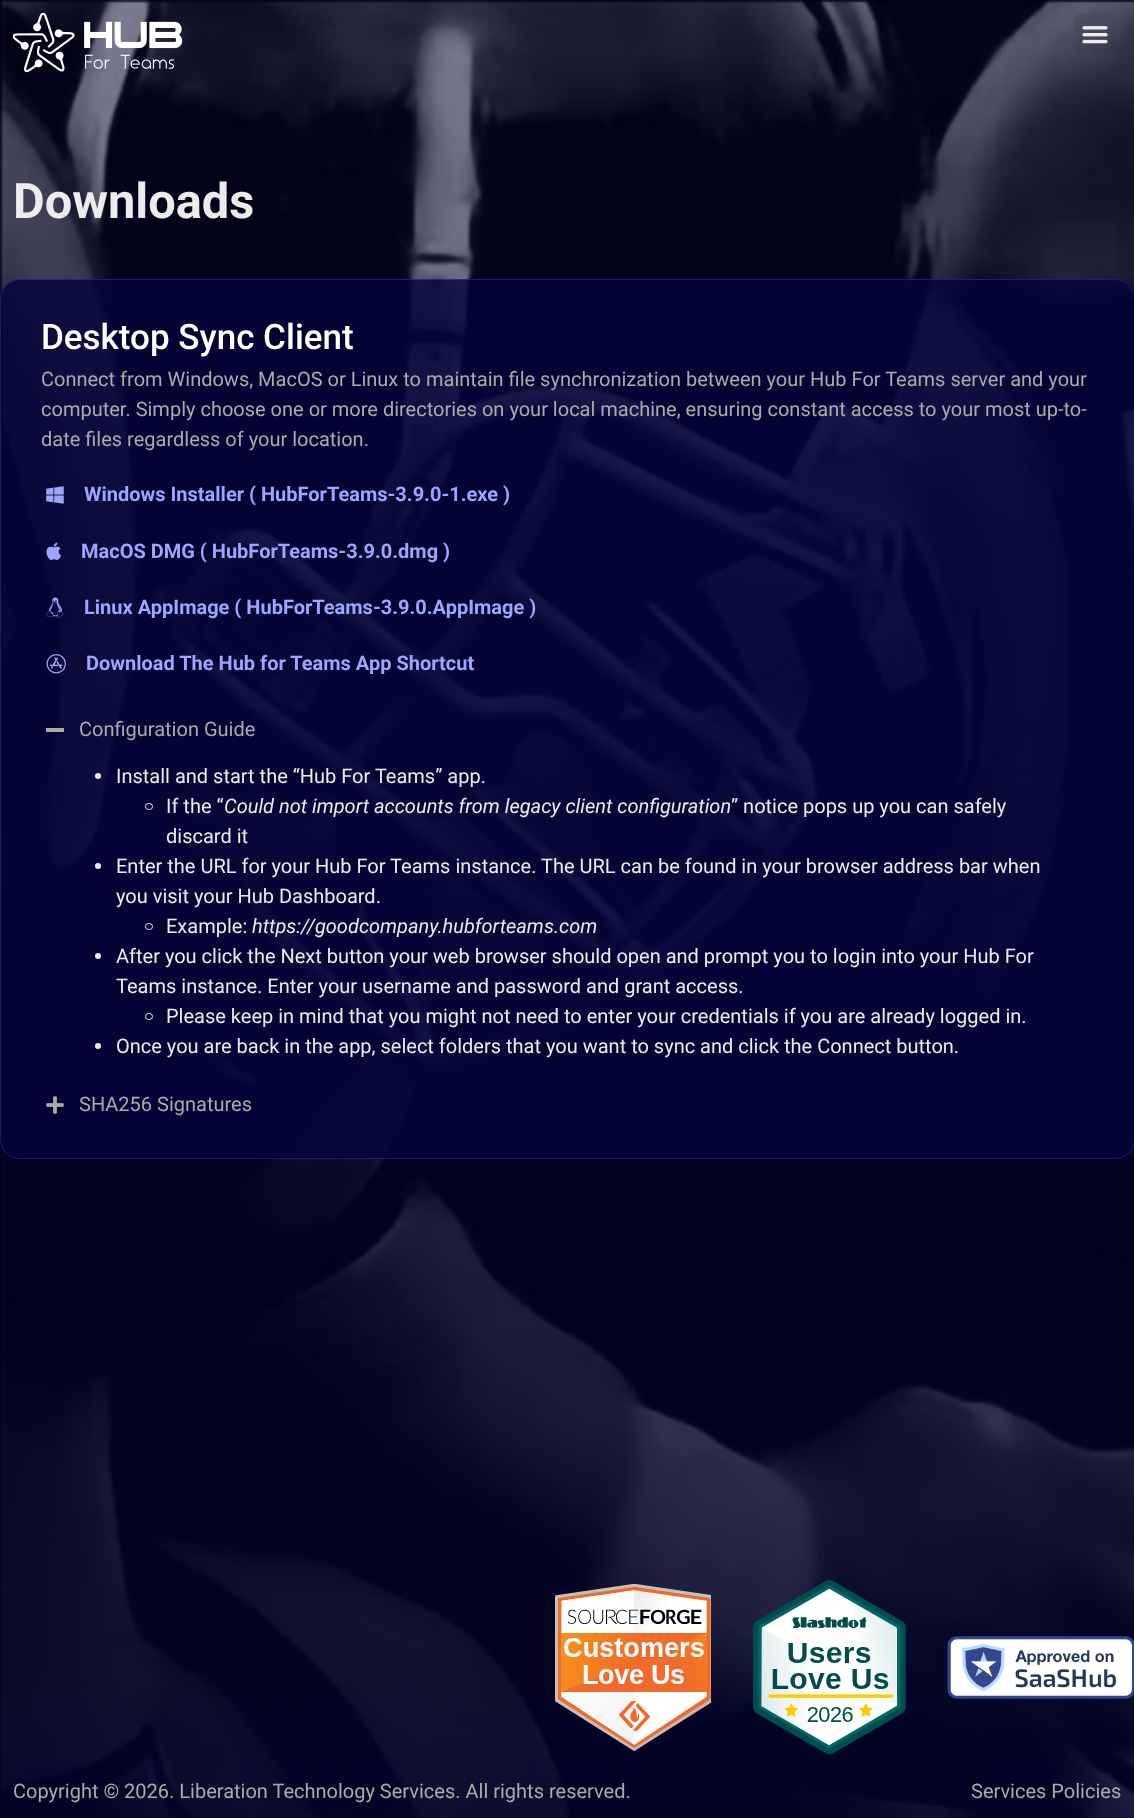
<!DOCTYPE html>
<meta charset="utf-8">
<style>body { margin: 0 } canvas { display: block }</style>
<canvas id="canvas" width="1134" height="1818"></canvas>
<img id="img1" src="images/1.png" hidden>
<img id="img2" src="images/2.png" hidden>
<img id="img3" src="images/3.png" hidden>
<img id="img4" src="images/4.png" hidden>
<img id="img5" src="images/5.png" hidden>
<img id="img6" src="images/6.png" hidden>
<img id="img7" src="images/7.png" hidden>
<img id="img8" src="images/8.png" hidden>
<img id="img9" src="images/9.png" hidden>
<img id="img10" src="images/10.png" hidden>
<img id="img11" src="images/11.png" hidden>
<script>
window.onload = function () {
    const canvas = document.getElementById('canvas');
    const context = canvas.getContext('2d');
    context.miterLimit = 4;
    context.fontKerning = 'normal';

    context.fillStyle = 'rgb(255, 255, 255)';
    context.fillRect(0, 0, 1134, 1818);
    context.drawImage(document.getElementById('img1'), 0, 0, 1134, 1818);
    context.drawImage(document.getElementById('img2'), 13, 13, 170, 60);
    context.fillStyle = 'rgba(0, 0, 0, 0.05)';
    context.fillRect(1075, 13, 41, 41);
    context.drawImage(document.getElementById('img3'), 1082, 26, 26, 18);
    context.fillStyle = 'rgba(4, 4, 59, 0.8)';
    context.beginPath();
    context.roundRect(0, 279, 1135, 880, 20);
    context.fill();
    context.beginPath();
    context.roundRect(0.5, 279.5, 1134, 879, 19.5);
    context.strokeStyle = 'rgba(89, 105, 255, 0.27)';
    context.stroke();
    context.drawImage(document.getElementById('img4'), 46, 486, 18, 18);
    context.drawImage(document.getElementById('img5'), 46, 542, 15, 18);
    context.drawImage(document.getElementById('img6'), 46, 597, 18, 21);
    context.drawImage(document.getElementById('img7'), 46, 654, 20, 20);
    context.fillStyle = 'rgb(171, 171, 171)';
    context.fillRect(46, 728, 18, 4);
    context.fillStyle = 'rgb(236, 236, 236)';
    context.beginPath();
    context.arc(98, 776, 3, 0, 2 * Math.PI);
    context.fill();
    context.beginPath();
    context.roundRect(145.5, 803.5, 7, 6, 3);
    context.strokeStyle = 'rgb(236, 236, 236)';
    context.stroke();
    context.beginPath();
    context.arc(98, 866, 3, 0, 2 * Math.PI);
    context.fill();
    context.beginPath();
    context.roundRect(145.5, 923.5, 7, 6, 3);
    context.stroke();
    context.beginPath();
    context.arc(98, 956, 3, 0, 2 * Math.PI);
    context.fill();
    context.beginPath();
    context.roundRect(145.5, 1013.5, 7, 6, 3);
    context.stroke();
    context.beginPath();
    context.arc(98, 1046, 3, 0, 2 * Math.PI);
    context.fill();
    context.drawImage(document.getElementById('img8'), 46, 1096, 18, 18);
    context.drawImage(document.getElementById('img9'), 555, 1584, 156, 167);
    context.drawImage(document.getElementById('img10'), 753, 1580, 153, 175);
    context.drawImage(document.getElementById('img11'), 947, 1636, 187, 63);
    context.font = 'bold 48.75px Roboto';
    context.fillText('Downloads', 13, 218);
    context.font = '500 35px Roboto';
    context.fillStyle = 'rgb(255, 255, 255)';
    context.fillText('Desktop Sync Client', 41, 349);
    context.font = '20px Roboto';
    context.fillStyle = 'rgb(171, 171, 171)';
    context.fillText('Connect from Windows, MacOS or Linux to maintain file synchronization between your Hub For Teams server and your', 41, 386);
    context.fillText('computer. Simply choose one or more directories on your local machine, ensuring constant access to your most up-to-', 41, 416);
    context.fillText('date files regardless of your location.', 41, 446);
    context.font = 'bold 20px Roboto';
    context.fillStyle = 'rgb(157, 166, 252)';
    context.fillText('Windows Installer ( HubForTeams-3.9.0-1.exe )', 84, 501);
    context.fillText('MacOS DMG ( HubForTeams-3.9.0.dmg )', 81, 558);
    context.fillText('Linux AppImage ( HubForTeams-3.9.0.AppImage )', 84, 614);
    context.fillText('Download The Hub for Teams App Shortcut', 86, 670);
    context.font = '20px Roboto';
    context.fillStyle = 'rgb(171, 171, 171)';
    context.fillText('Configuration Guide', 79, 736);
    context.fillStyle = 'rgb(236, 236, 236)';
    context.fillText('Install and start the “Hub For Teams” app.', 116, 783);
    context.fillText('If the “', 166, 813);
    context.font = 'italic 20px Roboto';
    context.fillText('Could not import accounts from legacy client configuration', 224, 813);
    context.font = '20px Roboto';
    context.fillText('” notice pops up you can safely', 731, 813);
    context.fillText('discard it', 166, 843);
    context.fillText('Enter the URL for your Hub For Teams instance. The URL can be found in your browser address bar when', 116, 873);
    context.fillText('you visit your Hub Dashboard.', 116, 903);
    context.fillText('Example:', 166, 933);
    context.font = 'italic 20px Roboto';
    context.fillText('https://goodcompany.hubforteams.com', 252, 933);
    context.font = '20px Roboto';
    context.fillText('After you click the Next button your web browser should open and prompt you to login into your Hub For', 116, 963);
    context.fillText('Teams instance. Enter your username and password and grant access.', 116, 993);
    context.fillText('Please keep in mind that you might not need to enter your credentials if you are already logged in.', 166, 1023);
    context.fillText('Once you are back in the app, select folders that you want to sync and click the Connect button.', 116, 1053);
    context.fillStyle = 'rgb(171, 171, 171)';
    context.fillText('SHA256 Signatures', 79, 1111);
    context.fillText('Copyright © 2026. Liberation Technology Services. All rights reserved.', 13, 1798);
    context.fillText('Services Policies', 971, 1798);
};
</script>
